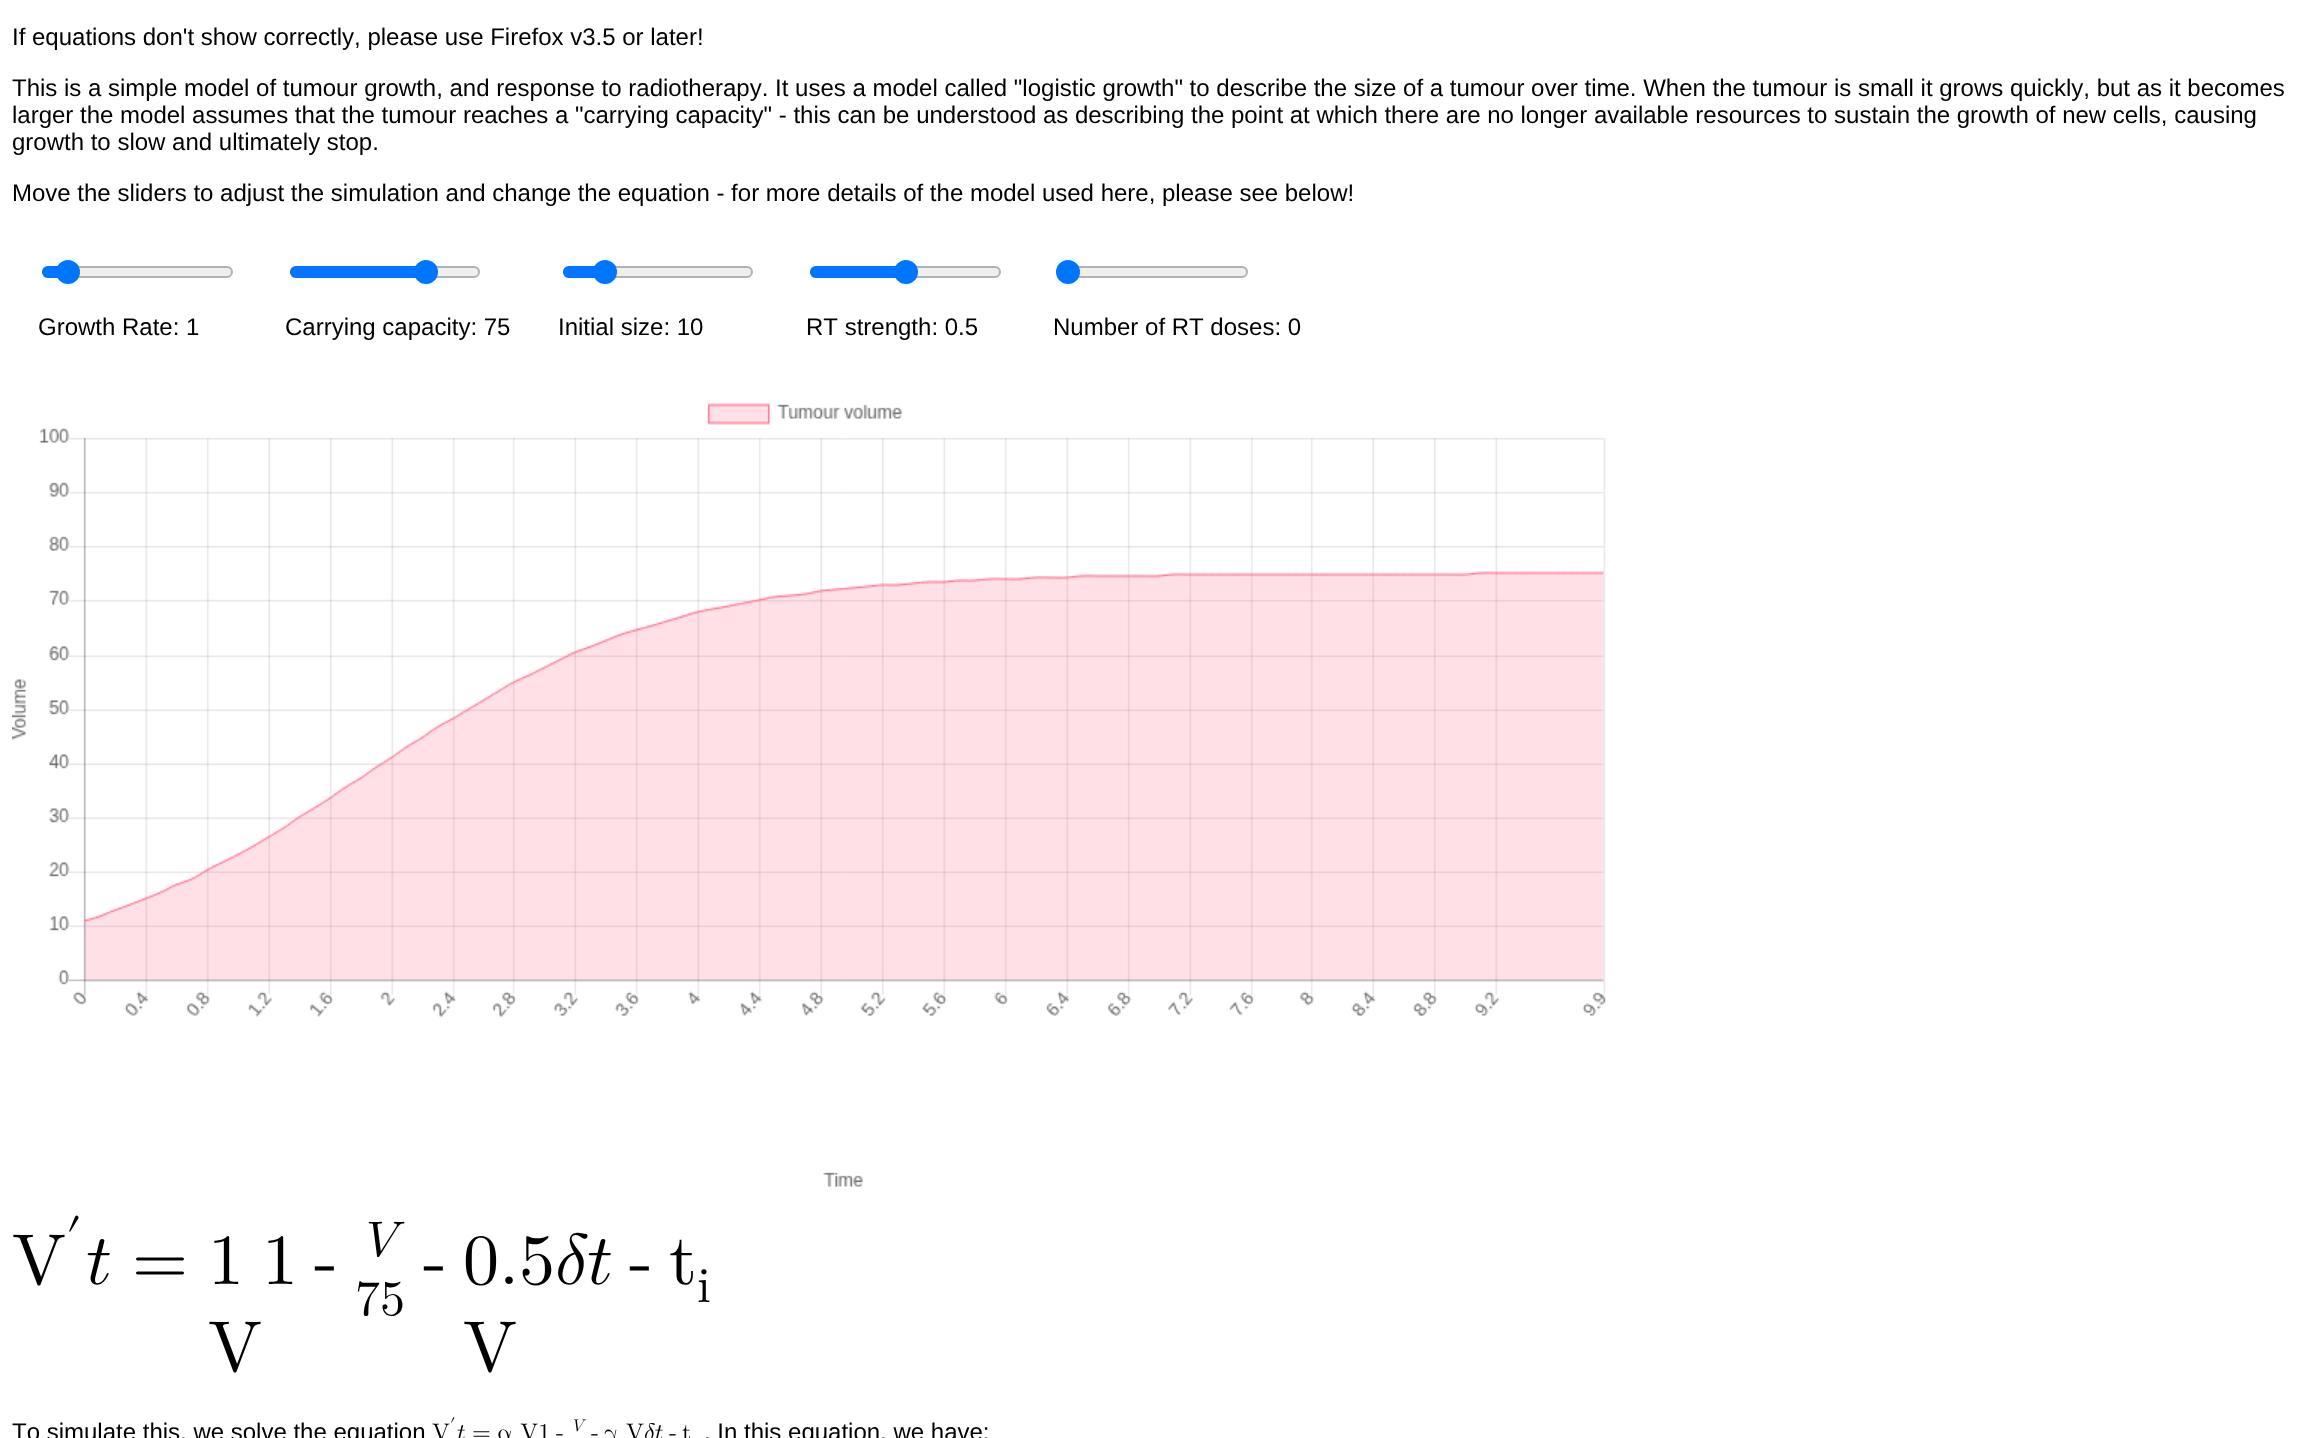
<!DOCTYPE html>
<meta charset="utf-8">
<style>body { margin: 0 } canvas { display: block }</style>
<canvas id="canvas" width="2313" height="1438"></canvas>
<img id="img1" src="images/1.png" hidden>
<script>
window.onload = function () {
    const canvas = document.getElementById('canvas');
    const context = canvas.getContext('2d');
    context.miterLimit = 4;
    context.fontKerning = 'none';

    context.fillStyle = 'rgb(255, 255, 255)';
    context.fillRect(0, 0, 2313, 1438);
    context.fillStyle = 'rgb(239, 239, 239)';
    context.beginPath();
    context.roundRect(43, 267, 189, 10, 5);
    context.fill();
    context.strokeStyle = 'rgb(178, 178, 178)';
    context.lineWidth = 2;
    context.stroke();
    context.fillStyle = 'rgb(0, 117, 255)';
    context.beginPath();
    context.roundRect(42, 266, 26, 12, [6, 0, 0, 6]);
    context.fill();
    context.beginPath();
    context.arc(68, 272, 12, 0, 2 * Math.PI);
    context.fill();
    context.fillStyle = 'rgb(239, 239, 239)';
    context.beginPath();
    context.roundRect(291, 267, 188, 10, 5);
    context.fill();
    context.stroke();
    context.fillStyle = 'rgb(0, 117, 255)';
    context.beginPath();
    context.roundRect(290, 266, 136, 12, [6, 0, 0, 6]);
    context.fill();
    context.beginPath();
    context.arc(426, 272, 12, 0, 2 * Math.PI);
    context.fill();
    context.fillStyle = 'rgb(239, 239, 239)';
    context.beginPath();
    context.roundRect(564, 267, 188, 10, 5);
    context.fill();
    context.stroke();
    context.fillStyle = 'rgb(0, 117, 255)';
    context.beginPath();
    context.roundRect(563, 266, 42, 12, [6, 0, 0, 6]);
    context.fill();
    context.beginPath();
    context.arc(605, 272, 12, 0, 2 * Math.PI);
    context.fill();
    context.fillStyle = 'rgb(239, 239, 239)';
    context.beginPath();
    context.roundRect(811, 267, 189, 10, 5);
    context.fill();
    context.stroke();
    context.fillStyle = 'rgb(0, 117, 255)';
    context.beginPath();
    context.roundRect(810, 266, 96, 12, [6, 0, 0, 6]);
    context.fill();
    context.beginPath();
    context.arc(906, 272, 12, 0, 2 * Math.PI);
    context.fill();
    context.fillStyle = 'rgb(239, 239, 239)';
    context.beginPath();
    context.roundRect(1059, 267, 188, 10, 5);
    context.fill();
    context.stroke();
    context.fillStyle = 'rgb(0, 117, 255)';
    context.beginPath();
    context.arc(1068, 272, 12, 0, 2 * Math.PI);
    context.fill();
    context.drawImage(document.getElementById('img1'), 12, 403, 1594, 784);
    context.font = '24px Liberation Sans';
    context.fillStyle = 'rgb(0, 0, 0)';
    context.fillText('If equations don\'t show correctly, please use Firefox v3.5 or later!', 12, 45);
    context.fillText('This is a simple model of tumour growth, and response to radiotherapy. It uses a model called "logistic growth" to describe the size of a tumour over time. When the tumour is small it grows quickly, but as it becomes', 12, 96);
    context.fillText('larger the model assumes that the tumour reaches a "carrying capacity" - this can be understood as describing the point at which there are no longer available resources to sustain the growth of new cells, causing', 12, 123);
    context.fillText('growth to slow and ultimately stop.', 12, 150);
    context.fillText('Move the sliders to adjust the simulation and change the equation - for more details of the model used here, please see below!', 12, 201);
    context.fillText('Growth Rate: 1', 38, 335);
    context.fillText('Carrying capacity: 75', 285, 335);
    context.fillText('Initial size: 10', 558, 335);
    context.fillText('RT strength: 0.5', 806, 335);
    context.fillText('Number of RT doses: 0', 1053, 335);
    context.font = '50px Latin Modern Math';
    context.fillText('′', 66, 1253);
    context.font = '72px Latin Modern Math';
    context.fillText('V', 12, 1284);
    context.fillText('𝑡', 86, 1284);
    context.fillText('=', 132, 1284);
    context.fillText('1', 208, 1284);
    context.fillText('V', 208, 1371);
    context.fillText('1', 262, 1284);
    context.fillText('-', 314, 1284);
    context.font = '50px Latin Modern Math';
    context.fillText('𝑉', 366, 1256);
    context.fillText('75', 355, 1315);
    context.font = '72px Latin Modern Math';
    context.fillText('-', 423, 1284);
    context.fillText('0.5𝛿𝑡', 463, 1284);
    context.fillText('V', 463, 1371);
    context.fillText('-', 629, 1284);
    context.fillText('t', 669, 1284);
    context.font = '50px Latin Modern Math';
    context.fillText('i', 697, 1302);
    context.font = '24px Liberation Sans';
    context.fillText('To simulate this, we solve the equation', 12, 1440);
    context.font = '17px Latin Modern Math';
    context.fillText('′', 450, 1430);
    context.font = '24px Latin Modern Math';
    context.fillText('V', 432, 1440);
    context.fillText('𝑡', 457, 1440);
    context.fillText('=', 472, 1440);
    context.fillText('α V1', 497, 1440);
    context.font = '17px Latin Modern Math';
    context.fillText('𝑉', 573, 1431);
    context.font = '24px Latin Modern Math';
    context.fillText('-', 556, 1440);
    context.fillText('-', 591, 1440);
    context.fillText('γ V𝛿𝑡', 604, 1440);
    context.fillText('-', 669, 1440);
    context.fillText('t', 682, 1440);
    context.font = '24px Liberation Sans';
    context.fillText('. In this equation, we have:', 704, 1440);
};
</script>
